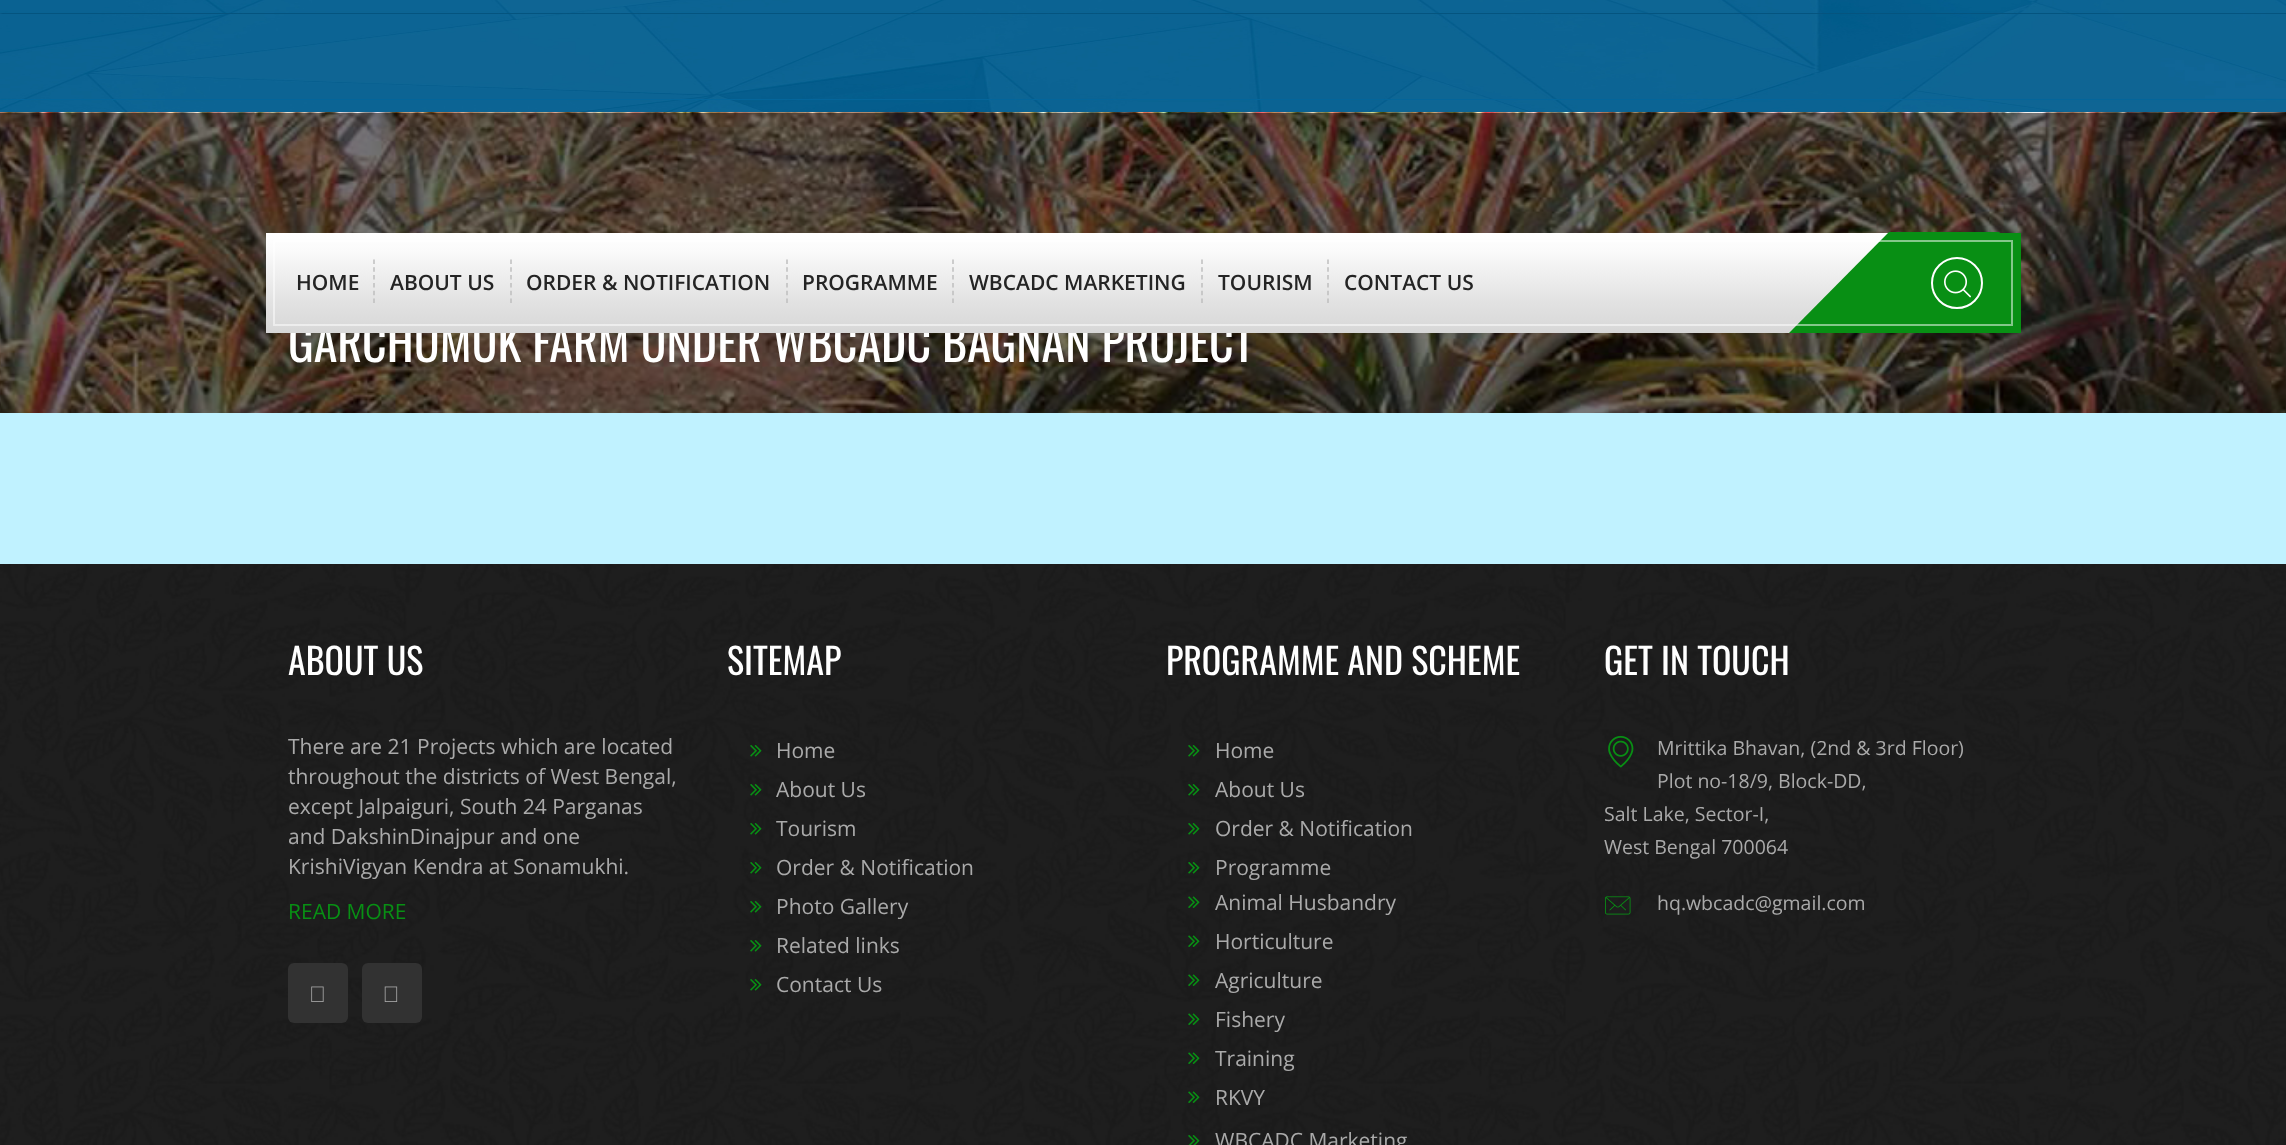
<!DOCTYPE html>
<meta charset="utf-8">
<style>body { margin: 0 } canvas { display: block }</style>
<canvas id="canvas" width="2286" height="1145"></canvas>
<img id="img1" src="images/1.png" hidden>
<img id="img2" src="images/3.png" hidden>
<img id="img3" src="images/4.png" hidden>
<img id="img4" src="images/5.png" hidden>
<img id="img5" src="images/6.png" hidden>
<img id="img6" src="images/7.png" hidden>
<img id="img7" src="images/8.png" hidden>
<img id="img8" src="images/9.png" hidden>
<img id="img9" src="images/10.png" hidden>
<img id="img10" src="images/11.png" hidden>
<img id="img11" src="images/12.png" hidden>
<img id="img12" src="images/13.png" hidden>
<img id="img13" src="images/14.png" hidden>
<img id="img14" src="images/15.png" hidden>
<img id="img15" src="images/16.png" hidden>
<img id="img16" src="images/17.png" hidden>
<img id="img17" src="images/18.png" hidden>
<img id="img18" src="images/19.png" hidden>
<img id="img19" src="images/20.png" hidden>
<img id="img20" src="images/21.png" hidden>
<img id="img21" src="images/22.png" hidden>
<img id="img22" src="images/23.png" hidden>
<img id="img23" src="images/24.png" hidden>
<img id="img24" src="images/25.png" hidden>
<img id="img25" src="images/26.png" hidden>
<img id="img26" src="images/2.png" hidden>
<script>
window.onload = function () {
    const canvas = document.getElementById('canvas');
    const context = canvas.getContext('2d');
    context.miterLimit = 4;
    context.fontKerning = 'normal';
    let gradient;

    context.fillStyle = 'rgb(255, 255, 255)';
    context.fillRect(0, 0, 2286, 1145);
    context.drawImage(document.getElementById('img1'), 0, 0, 2286, 112);
    context.drawImage(document.getElementById('img2'), 0, 112, 2286, 301);
    context.fillStyle = 'rgb(8, 143, 20)';
    context.fillRect(1900, 233, 121, 100);
    context.fillStyle = 'rgb(192, 242, 255)';
    context.fillRect(0, 413, 2286, 151);
    context.drawImage(document.getElementById('img3'), 0, 564, 2286, 581);
    context.fillStyle = 'rgb(50, 50, 50)';
    context.beginPath();
    context.roundRect(288, 963, 60, 60, 6);
    context.fill();
    context.drawImage(document.getElementById('img4'), 311, 986, 13, 16);
    context.beginPath();
    context.roundRect(362, 963, 60, 60, 6);
    context.fill();
    context.drawImage(document.getElementById('img5'), 384, 986, 14, 16);
    context.drawImage(document.getElementById('img6'), 750, 745, 12, 12);
    context.drawImage(document.getElementById('img7'), 750, 784, 12, 12);
    context.drawImage(document.getElementById('img8'), 750, 823, 12, 12);
    context.drawImage(document.getElementById('img9'), 750, 862, 12, 12);
    context.drawImage(document.getElementById('img10'), 750, 901, 12, 12);
    context.drawImage(document.getElementById('img11'), 750, 940, 12, 12);
    context.drawImage(document.getElementById('img12'), 750, 979, 12, 12);
    context.drawImage(document.getElementById('img13'), 1188, 745, 12, 12);
    context.drawImage(document.getElementById('img14'), 1188, 784, 12, 12);
    context.drawImage(document.getElementById('img15'), 1188, 823, 12, 12);
    context.drawImage(document.getElementById('img16'), 1188, 862, 12, 12);
    context.drawImage(document.getElementById('img17'), 1188, 896, 12, 12);
    context.drawImage(document.getElementById('img18'), 1188, 935, 12, 12);
    context.drawImage(document.getElementById('img19'), 1188, 974, 12, 12);
    context.drawImage(document.getElementById('img20'), 1188, 1013, 12, 12);
    context.drawImage(document.getElementById('img21'), 1188, 1052, 12, 12);
    context.drawImage(document.getElementById('img22'), 1188, 1091, 12, 12);
    context.drawImage(document.getElementById('img23'), 1188, 1135, 12, 10);
    context.drawImage(document.getElementById('img24'), 1608, 735, 26, 33);
    context.drawImage(document.getElementById('img25'), 1605, 896, 26, 19);
    context.font = '48px Oswald';
    context.fillStyle = 'rgb(255, 255, 255)';
    context.fillText('GARCHUMUK FARM UNDER WBCADC BAGNAN PROJECT', 288, 362);
    gradient = context.createLinearGradient(1143, 232, 1143, 333);
    gradient.addColorStop(0, 'rgb(255, 255, 255)');
    gradient.addColorStop(0.19, 'rgb(250, 250, 250)');
    gradient.addColorStop(0.69, 'rgb(226, 226, 226)');
    gradient.addColorStop(1, 'rgb(215, 215, 215)');
    context.fillStyle = gradient;
    context.fillRect(266, 233, 1622, 100);
    context.fillStyle = 'rgb(8, 143, 20)';
    context.beginPath();
    context.moveTo(1889, 232);
    context.lineTo(2000, 232);
    context.lineTo(1900, 333);
    context.lineTo(1789, 333);
    context.closePath();
    context.fill();
    context.strokeStyle = 'rgba(255, 255, 255, 0.5)';
    context.lineWidth = 2;
    context.strokeRect(274, 241, 1738, 84);
    context.beginPath();
    context.arc(1957, 283, 25, 0, 2 * Math.PI);
    context.strokeStyle = 'rgb(255, 255, 255)';
    context.stroke();
    context.drawImage(document.getElementById('img26'), 1944, 270, 27, 28);
    context.font = '600 21px Open Sans';
    context.fillStyle = 'rgb(36, 36, 36)';
    context.fillText('CONTACT US', 1344, 290);
    context.fillText('TOURISM', 1218, 290);
    context.beginPath();
    context.moveTo(1328, 259.5);
    context.lineTo(1328, 303);
    context.strokeStyle = 'rgb(190, 190, 190)';
    context.lineWidth = 1.5;
    context.setLineDash([4.5, 3.3]);
    context.stroke();
    context.fillText('WBCADC MARKETING', 969, 290);
    context.beginPath();
    context.moveTo(1202, 259.5);
    context.lineTo(1202, 303);
    context.stroke();
    context.fillText('PROGRAMME', 802, 290);
    context.beginPath();
    context.moveTo(953, 259.5);
    context.lineTo(953, 303);
    context.stroke();
    context.fillText('ORDER & NOTIFICATION', 526, 290);
    context.beginPath();
    context.moveTo(787, 259.5);
    context.lineTo(787, 303);
    context.stroke();
    context.fillText('ABOUT US', 390, 290);
    context.beginPath();
    context.moveTo(511, 259.5);
    context.lineTo(511, 303);
    context.stroke();
    context.fillText('HOME', 296, 290);
    context.beginPath();
    context.moveTo(374, 259.5);
    context.lineTo(374, 303);
    context.stroke();
    context.font = '36px Oswald';
    context.fillStyle = 'rgb(255, 255, 255)';
    context.fillText('ABOUT US', 288, 675);
    context.font = '21px Open Sans';
    context.fillStyle = 'rgb(170, 170, 170)';
    context.fillText('There are 21 Projects which are located', 288, 754);
    context.fillText('throughout the districts of West Bengal,', 288, 784);
    context.fillText('except Jalpaiguri, South 24 Parganas', 288, 814);
    context.fillText('and DakshinDinajpur and one', 288, 844);
    context.fillText('KrishiVigyan Kendra at Sonamukhi.', 288, 874);
    context.fillStyle = 'rgb(8, 143, 20)';
    context.fillText('READ MORE', 288, 919);
    context.font = '36px Oswald';
    context.fillStyle = 'rgb(255, 255, 255)';
    context.fillText('SITEMAP', 727, 675);
    context.font = '21px Open Sans';
    context.fillStyle = 'rgb(170, 170, 170)';
    context.fillText('Home', 776, 758);
    context.fillText('About Us', 776, 797);
    context.fillText('Tourism', 776, 836);
    context.fillText('Order & Notification', 776, 875);
    context.fillText('Photo Gallery', 776, 914);
    context.fillText('Related links', 776, 953);
    context.fillText('Contact Us', 776, 992);
    context.font = '36px Oswald';
    context.fillStyle = 'rgb(255, 255, 255)';
    context.fillText('PROGRAMME AND SCHEME', 1166, 675);
    context.font = '21px Open Sans';
    context.fillStyle = 'rgb(170, 170, 170)';
    context.fillText('Home', 1215, 758);
    context.fillText('About Us', 1215, 797);
    context.fillText('Order & Notification', 1215, 836);
    context.fillText('Programme', 1215, 875);
    context.fillText('Animal Husbandry', 1215, 910);
    context.fillText('Horticulture', 1215, 949);
    context.fillText('Agriculture', 1215, 988);
    context.fillText('Fishery', 1215, 1027);
    context.fillText('Training', 1215, 1066);
    context.fillText('RKVY', 1215, 1105);
    context.fillText('WBCADC Marketing', 1215, 1148);
    context.font = '36px Oswald';
    context.fillStyle = 'rgb(255, 255, 255)';
    context.fillText('GET IN TOUCH', 1604, 675);
    context.font = '19.5px Open Sans';
    context.fillStyle = 'rgb(170, 170, 170)';
    context.fillText('Mrittika Bhavan, (2nd & 3rd Floor)', 1657, 755);
    context.fillText('Plot no-18/9, Block-DD,', 1657, 788);
    context.fillText('Salt Lake, Sector-I,', 1604, 821);
    context.fillText('West Bengal 700064', 1604, 854);
    context.fillText('hq.wbcadc@gmail.com', 1657, 910);
};
</script>
